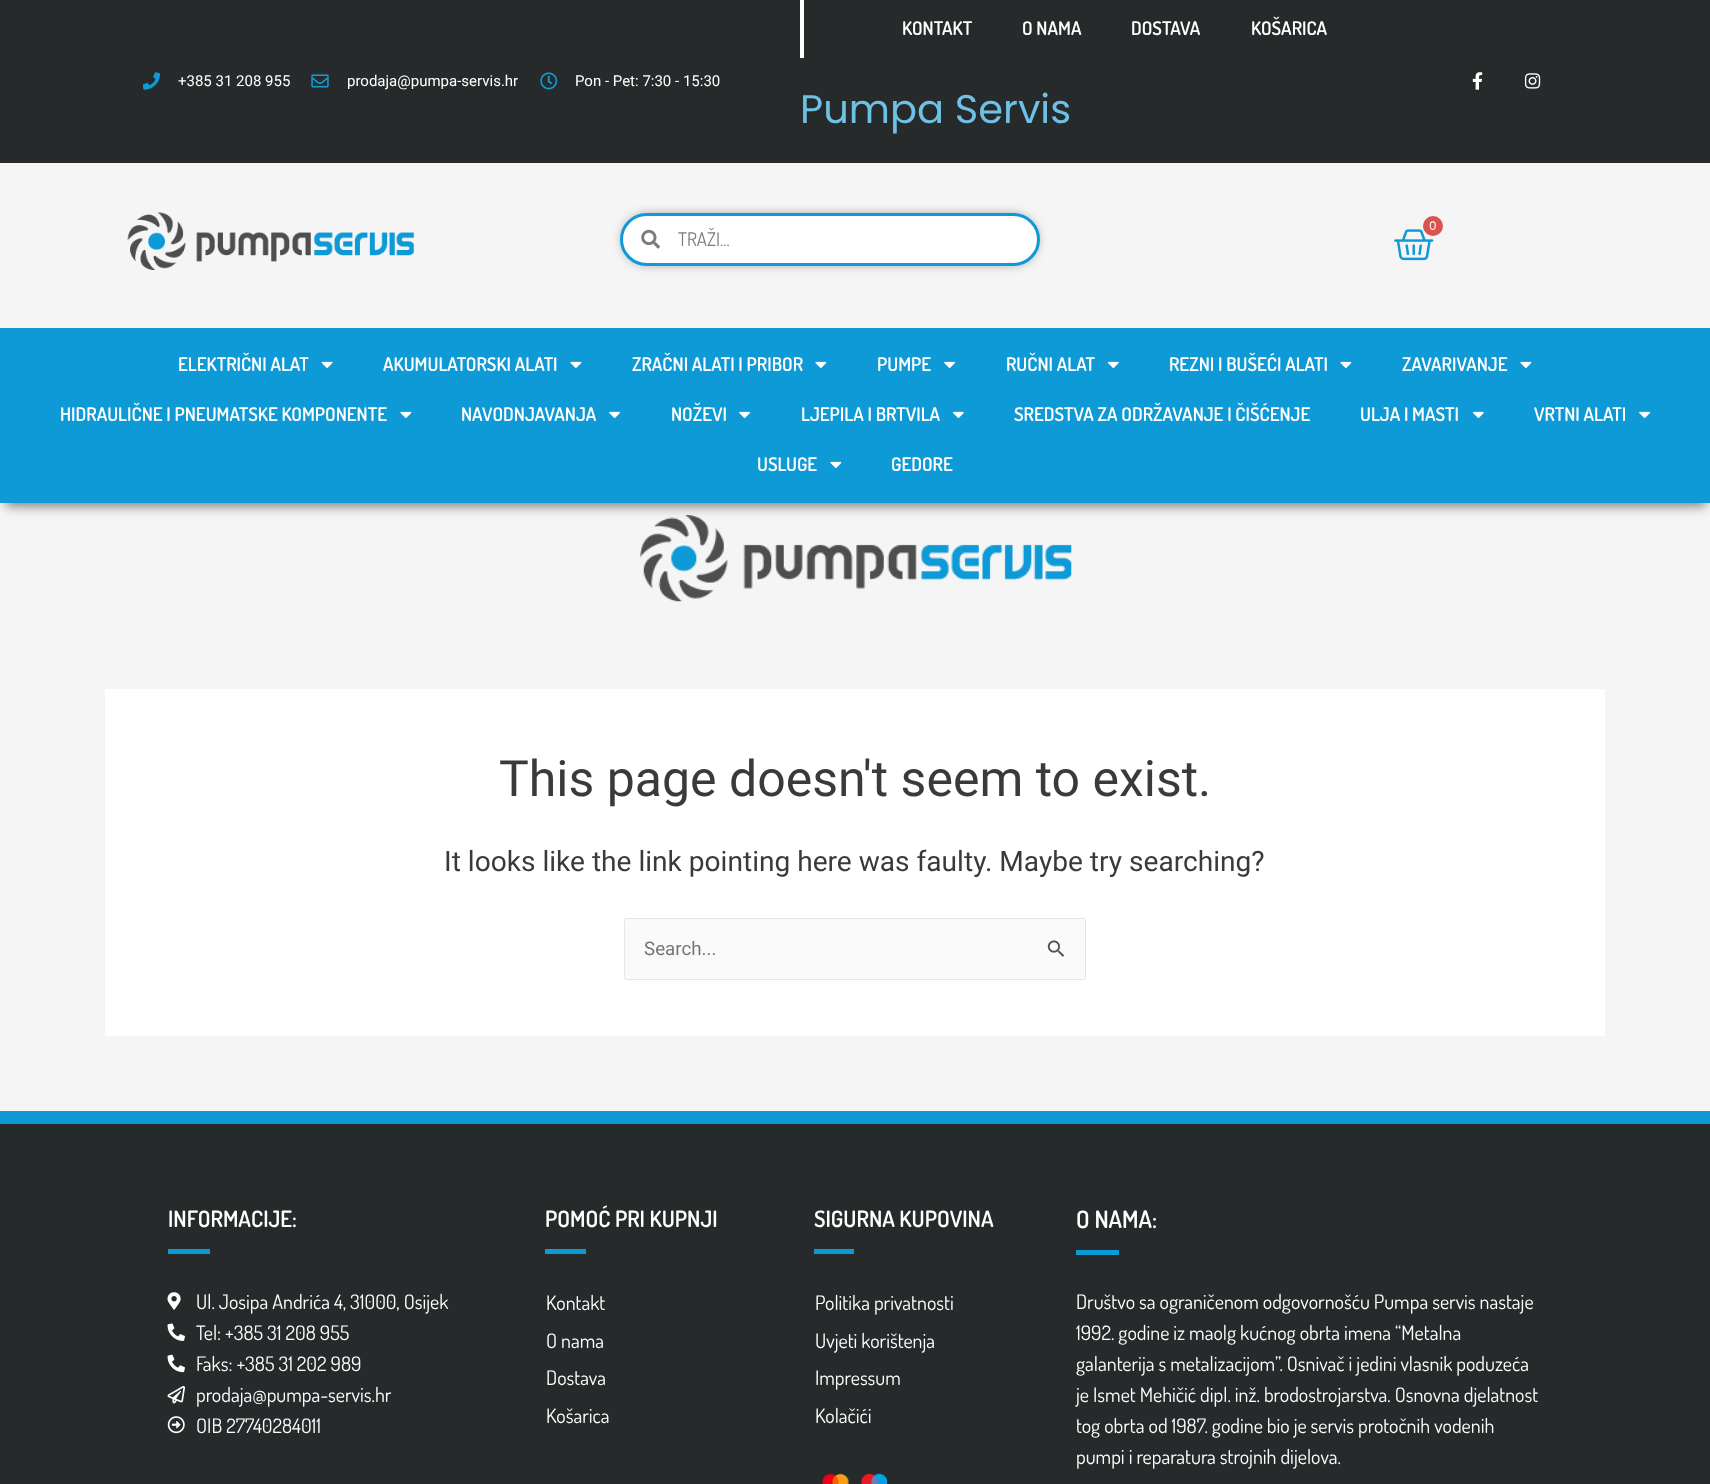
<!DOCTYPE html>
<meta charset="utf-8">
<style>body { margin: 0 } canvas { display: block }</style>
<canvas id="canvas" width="1710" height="1484"></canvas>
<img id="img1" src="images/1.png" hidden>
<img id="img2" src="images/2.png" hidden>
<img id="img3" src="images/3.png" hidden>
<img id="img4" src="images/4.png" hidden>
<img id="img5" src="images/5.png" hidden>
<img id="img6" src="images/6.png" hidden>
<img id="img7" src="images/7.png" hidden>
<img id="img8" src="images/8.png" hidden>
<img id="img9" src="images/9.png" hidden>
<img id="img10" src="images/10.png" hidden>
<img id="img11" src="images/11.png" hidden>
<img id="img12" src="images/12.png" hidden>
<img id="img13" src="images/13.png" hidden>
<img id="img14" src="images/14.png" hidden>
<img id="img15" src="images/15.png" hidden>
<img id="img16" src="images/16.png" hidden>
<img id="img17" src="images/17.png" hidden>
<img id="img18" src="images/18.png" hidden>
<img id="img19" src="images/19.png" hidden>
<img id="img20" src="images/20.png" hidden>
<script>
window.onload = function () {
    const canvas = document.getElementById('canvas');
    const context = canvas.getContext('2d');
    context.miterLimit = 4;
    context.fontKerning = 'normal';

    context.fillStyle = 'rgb(245, 245, 245)';
    context.fillRect(0, 0, 1710, 1484);
    context.fillStyle = 'rgb(38, 42, 43)';
    context.fillRect(0, 0, 1710, 163);
    context.drawImage(document.getElementById('img1'), 143, 72, 17, 18);
    context.drawImage(document.getElementById('img2'), 311, 74, 18, 14);
    context.drawImage(document.getElementById('img3'), 540, 72, 18, 18);
    context.fillStyle = 'rgb(255, 255, 255)';
    context.fillRect(800, 0, 4, 58);
    context.drawImage(document.getElementById('img4'), 1472, 72, 11, 18);
    context.drawImage(document.getElementById('img5'), 1524, 73, 17, 16);
    context.drawImage(document.getElementById('img6'), 127, 212, 287, 58);
    context.drawImage(document.getElementById('img7'), 1394, 229, 40, 32);
    context.fillStyle = 'rgb(217, 83, 79)';
    context.beginPath();
    context.arc(1433, 226, 10, 0, 2 * Math.PI);
    context.fill();
    context.fillStyle = 'rgba(0, 0, 0, 0.5)';
    context.filter = 'blur(6px)';
    context.beginPath();
    context.roundRect(624, 216, 412, 47, 23.5);
    context.fill();
    context.filter = 'none';
    context.fillStyle = 'rgb(255, 255, 255)';
    context.beginPath();
    context.roundRect(621.5, 214.5, 417, 50, 25);
    context.fill();
    context.strokeStyle = 'rgb(14, 153, 215)';
    context.lineWidth = 3;
    context.stroke();
    context.drawImage(document.getElementById('img8'), 641, 229, 19, 20);
    context.fillStyle = 'rgba(0, 0, 0, 0.5)';
    context.filter = 'blur(6px)';
    context.beginPath();
    context.rect(6, 341, 1700, 165);
    context.fill();
    context.filter = 'none';
    context.fillStyle = 'rgb(14, 153, 215)';
    context.fillRect(0, 328, 1710, 175);
    context.drawImage(document.getElementById('img9'), 321, 361, 12, 7);
    context.drawImage(document.getElementById('img10'), 570, 361, 12, 7);
    context.drawImage(document.getElementById('img10'), 815, 361, 12, 7);
    context.drawImage(document.getElementById('img11'), 944, 361, 11, 7);
    context.drawImage(document.getElementById('img12'), 1107, 361, 12, 7);
    context.drawImage(document.getElementById('img10'), 1340, 361, 12, 7);
    context.drawImage(document.getElementById('img10'), 1520, 361, 12, 7);
    context.drawImage(document.getElementById('img10'), 400, 411, 12, 7);
    context.drawImage(document.getElementById('img11'), 609, 411, 11, 7);
    context.drawImage(document.getElementById('img11'), 739, 411, 11, 7);
    context.drawImage(document.getElementById('img12'), 952, 411, 12, 7);
    context.drawImage(document.getElementById('img12'), 1472, 411, 12, 7);
    context.drawImage(document.getElementById('img11'), 1639, 411, 11, 7);
    context.drawImage(document.getElementById('img10'), 830, 461, 12, 7);
    context.drawImage(document.getElementById('img13'), 640, 515, 432, 87);
    context.fillStyle = 'rgb(255, 255, 255)';
    context.fillRect(105, 689, 1500, 347);
    context.fillStyle = 'rgb(250, 250, 250)';
    context.beginPath();
    context.roundRect(624.5, 918.5, 461, 61, 2);
    context.fill();
    context.strokeStyle = 'rgb(229, 229, 229)';
    context.lineWidth = 1;
    context.stroke();
    context.drawImage(document.getElementById('img14'), 1047, 940, 18, 17);
    context.fillStyle = 'rgb(38, 42, 43)';
    context.fillRect(0, 1124, 1710, 360);
    context.fillStyle = 'rgb(14, 153, 215)';
    context.fillRect(0, 1111, 1710, 13);
    context.fillRect(168, 1249, 42, 5);
    context.drawImage(document.getElementById('img15'), 167, 1292, 14, 18);
    context.drawImage(document.getElementById('img16'), 167, 1323, 18, 18);
    context.drawImage(document.getElementById('img17'), 167, 1354, 18, 19);
    context.drawImage(document.getElementById('img18'), 167, 1386, 18, 18);
    context.drawImage(document.getElementById('img19'), 167, 1416, 18, 18);
    context.fillRect(545, 1249, 41, 5);
    context.fillRect(814, 1249, 40, 5);
    context.drawImage(document.getElementById('img20'), 821, 1473, 67, 11);
    context.fillRect(1076, 1250, 43, 5);
    context.font = '15px Roboto';
    context.fillStyle = 'rgb(255, 255, 255)';
    context.fillText('+385 31 208 955', 178, 86);
    context.fillText('prodaja@pumpa-servis.hr', 347, 86);
    context.fillText('Pon - Pet: 7:30 - 15:30', 575, 86);
    context.font = '600 18.75px Dosis';
    context.fillText('KONTAKT', 902, 35);
    context.fillText('O NAMA', 1022, 35);
    context.fillText('DOSTAVA', 1131, 35);
    context.fillText('KOŠARICA', 1251, 35);
    context.font = '40px Poppins';
    context.fillStyle = 'rgb(110, 193, 228)';
    context.fillText('Pumpa Servis', 800, 123);
    context.font = '12px Poppins';
    context.fillStyle = 'rgb(255, 255, 255)';
    context.fillText('0', 1429, 230);
    context.save();
    context.beginPath();
    context.rect(678, 228, 336, 23);
    context.clip();
    context.font = '18.75px Dosis';
    context.fillStyle = 'rgb(124, 124, 124)';
    context.fillText('TRAŽI...', 678, 246);
    context.restore();
    context.font = '600 18.75px Dosis';
    context.fillText('ELEKTRIČNI ALAT', 178, 371);
    context.fillText('AKUMULATORSKI ALATI', 383, 371);
    context.fillText('ZRAČNI ALATI I PRIBOR', 632, 371);
    context.fillText('PUMPE', 877, 371);
    context.fillText('RUČNI ALAT', 1006, 371);
    context.fillText('REZNI I BUŠEĆI ALATI', 1169, 371);
    context.fillText('ZAVARIVANJE', 1402, 371);
    context.fillText('HIDRAULIČNE I PNEUMATSKE KOMPONENTE', 60, 421);
    context.fillText('NAVODNJAVANJA', 461, 421);
    context.fillText('NOŽEVI', 671, 421);
    context.fillText('LJEPILA I BRTVILA', 801, 421);
    context.fillText('SREDSTVA ZA ODRŽAVANJE I ČIŠĆENJE', 1014, 421);
    context.fillText('ULJA I MASTI', 1360, 421);
    context.fillText('VRTNI ALATI', 1534, 421);
    context.fillText('USLUGE', 757, 471);
    context.fillText('GEDORE', 891, 471);
    context.font = '50px Roboto';
    context.fillStyle = 'rgb(58, 58, 58)';
    context.fillText('This page doesn\'t seem to exist.', 499, 796);
    context.font = '28.1px Roboto';
    context.fillText('It looks like the link pointing here was faulty. Maybe try searching?', 444, 871);
    context.font = '18.75px Roboto';
    context.fillStyle = 'rgb(117, 117, 117)';
    context.fillText('Search...', 644, 955);
    context.font = '600 22.5px Dosis';
    context.fillStyle = 'rgb(255, 255, 255)';
    context.fillText('INFORMACIJE:', 168, 1227);
    context.font = '20px Dosis';
    context.fillText('Ul. Josipa Andrića 4, 31000, Osijek', 196, 1309);
    context.fillText('Tel: +385 31 208 955', 196, 1340);
    context.fillText('Faks: +385 31 202 989', 196, 1371);
    context.fillText('prodaja@pumpa-servis.hr', 196, 1402);
    context.fillText('OIB 27740284011', 196, 1433);
    context.font = '600 22.5px Dosis';
    context.fillText('POMOĆ PRI KUPNJI', 545, 1227);
    context.font = '20px Dosis';
    context.fillText('Kontakt', 546, 1310);
    context.fillText('O nama', 546, 1348);
    context.fillText('Dostava', 546, 1385);
    context.fillText('Košarica', 546, 1423);
    context.font = '600 22.5px Dosis';
    context.fillText('SIGURNA KUPOVINA', 814, 1227);
    context.font = '20px Dosis';
    context.fillText('Politika privatnosti', 815, 1310);
    context.fillText('Uvjeti korištenja', 815, 1348);
    context.fillText('Impressum', 815, 1385);
    context.fillText('Kolačići', 815, 1423);
    context.font = '600 24px Dosis';
    context.fillText('O NAMA:', 1076, 1228);
    context.font = '20px Dosis';
    context.fillText('Društvo sa ograničenom odgovornošću Pumpa servis nastaje', 1076, 1309);
    context.fillText('1992. godine iz maolg kućnog obrta imena “Metalna', 1076, 1340);
    context.fillText('galanterija s metalizacijom”. Osnivač i jedini vlasnik poduzeća', 1076, 1371);
    context.fillText('je Ismet Mehičić dipl. inž. brodostrojarstva. Osnovna djelatnost', 1076, 1402);
    context.fillText('tog obrta od 1987. godine bio je servis protočnih vodenih', 1076, 1433);
    context.fillText('pumpi i reparatura strojnih dijelova.', 1076, 1464);
};
</script>
